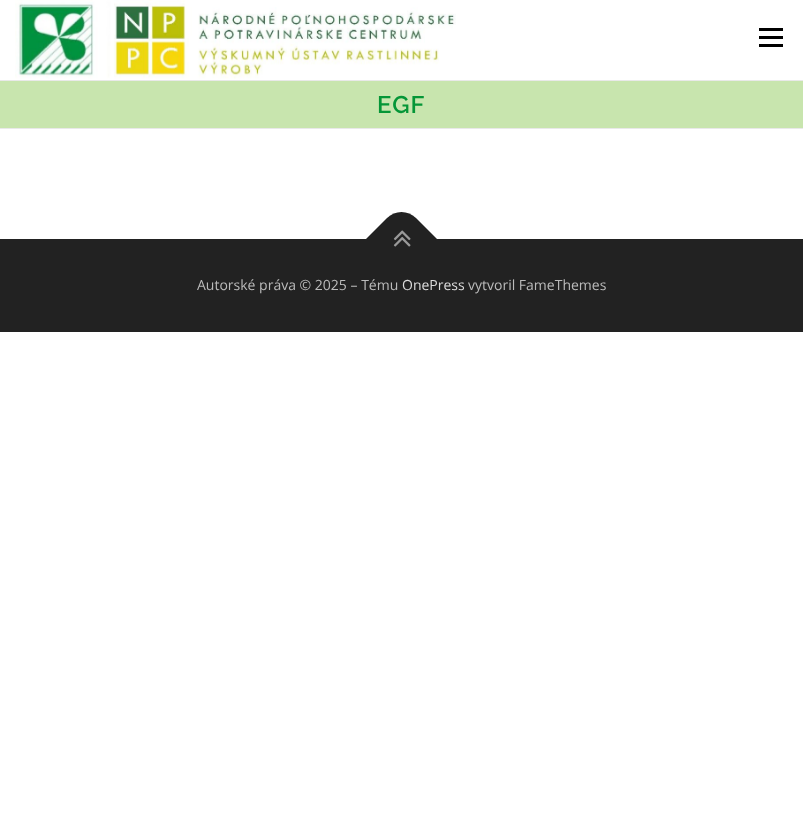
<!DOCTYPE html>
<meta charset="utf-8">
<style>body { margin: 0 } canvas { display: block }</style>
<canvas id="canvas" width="803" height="819"></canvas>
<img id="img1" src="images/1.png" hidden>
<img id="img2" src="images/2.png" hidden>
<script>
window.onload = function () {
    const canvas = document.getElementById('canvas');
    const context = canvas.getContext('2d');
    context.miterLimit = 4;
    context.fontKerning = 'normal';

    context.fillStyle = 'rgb(255, 255, 255)';
    context.fillRect(0, 0, 803, 819);
    context.drawImage(document.getElementById('img1'), 15, 0, 441, 79);
    context.fillStyle = 'rgb(0, 0, 0)';
    context.fillRect(759, 36, 24, 3);
    context.fillRect(759, 28, 24, 3);
    context.fillRect(759, 44, 24, 3);
    context.fillStyle = 'rgb(233, 233, 233)';
    context.fillRect(0, 80, 803, 1);
    context.fillRect(0, 128, 803, 1);
    context.fillStyle = 'rgb(200, 229, 174)';
    context.fillRect(0, 81, 803, 47);
    context.fillStyle = 'rgb(34, 34, 34)';
    context.fillRect(0, 239, 803, 93);
    context.beginPath();
    context.moveTo(366, 239);
    context.lineTo(387, 218);
    context.bezierCurveTo(395, 210, 408, 210, 416, 218);
    context.lineTo(437, 239);
    context.lineTo(402, 275);
    context.closePath();
    context.fill();
    context.drawImage(document.getElementById('img2'), 393, 230, 18, 17);
    context.letterSpacing = '1px';
    context.font = '600 24px Raleway';
    context.fillStyle = 'rgb(5, 150, 55)';
    context.fillText('EGF', 377, 113);
    context.letterSpacing = '0px';
    context.font = '14px Open Sans';
    context.fillStyle = 'rgb(187, 187, 187)';
    context.fillText('Autorské práva © 2025 – Tému', 197, 290);
    context.fillStyle = 'rgb(221, 221, 221)';
    context.fillText('OnePress', 402, 290);
    context.fillStyle = 'rgb(187, 187, 187)';
    context.fillText('vytvoril FameThemes', 468, 290);
};
</script>
